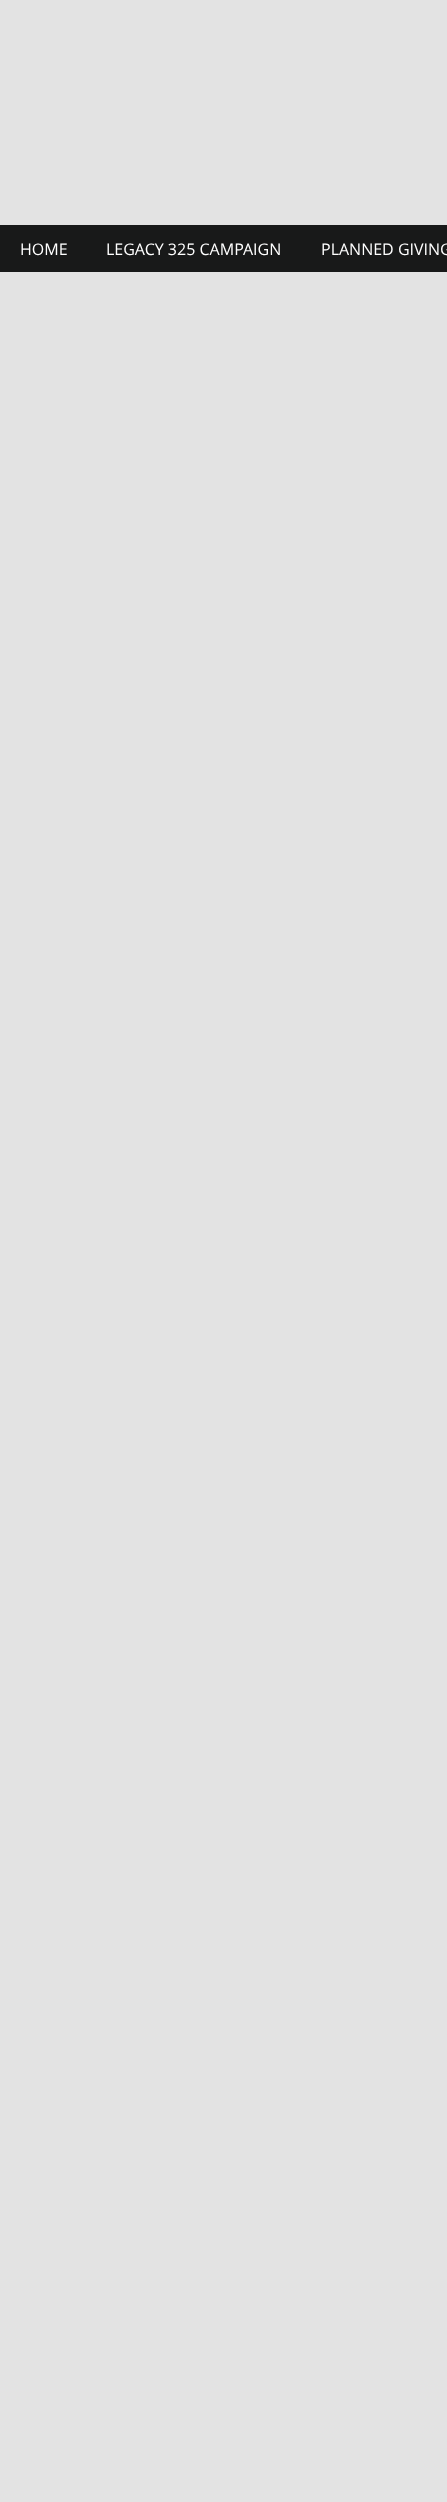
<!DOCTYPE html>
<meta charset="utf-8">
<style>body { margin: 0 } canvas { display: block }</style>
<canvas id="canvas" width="447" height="2502"></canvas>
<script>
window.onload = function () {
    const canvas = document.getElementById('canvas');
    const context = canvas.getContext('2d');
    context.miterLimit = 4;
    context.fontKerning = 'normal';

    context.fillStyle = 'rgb(227, 227, 227)';
    context.fillRect(0, 0, 447, 2502);
    context.fillStyle = 'rgb(24, 25, 25)';
    context.fillRect(0, 225, 447, 47);
    context.font = '16px Open Sans';
    context.fillStyle = 'rgb(255, 255, 255)';
    context.fillText('HOME', 20, 255);
    context.fillText('LEGACY 325 CAMPAIGN', 106, 255);
    context.fillText('PLANNED GIVING', 321, 255);
};
</script>
